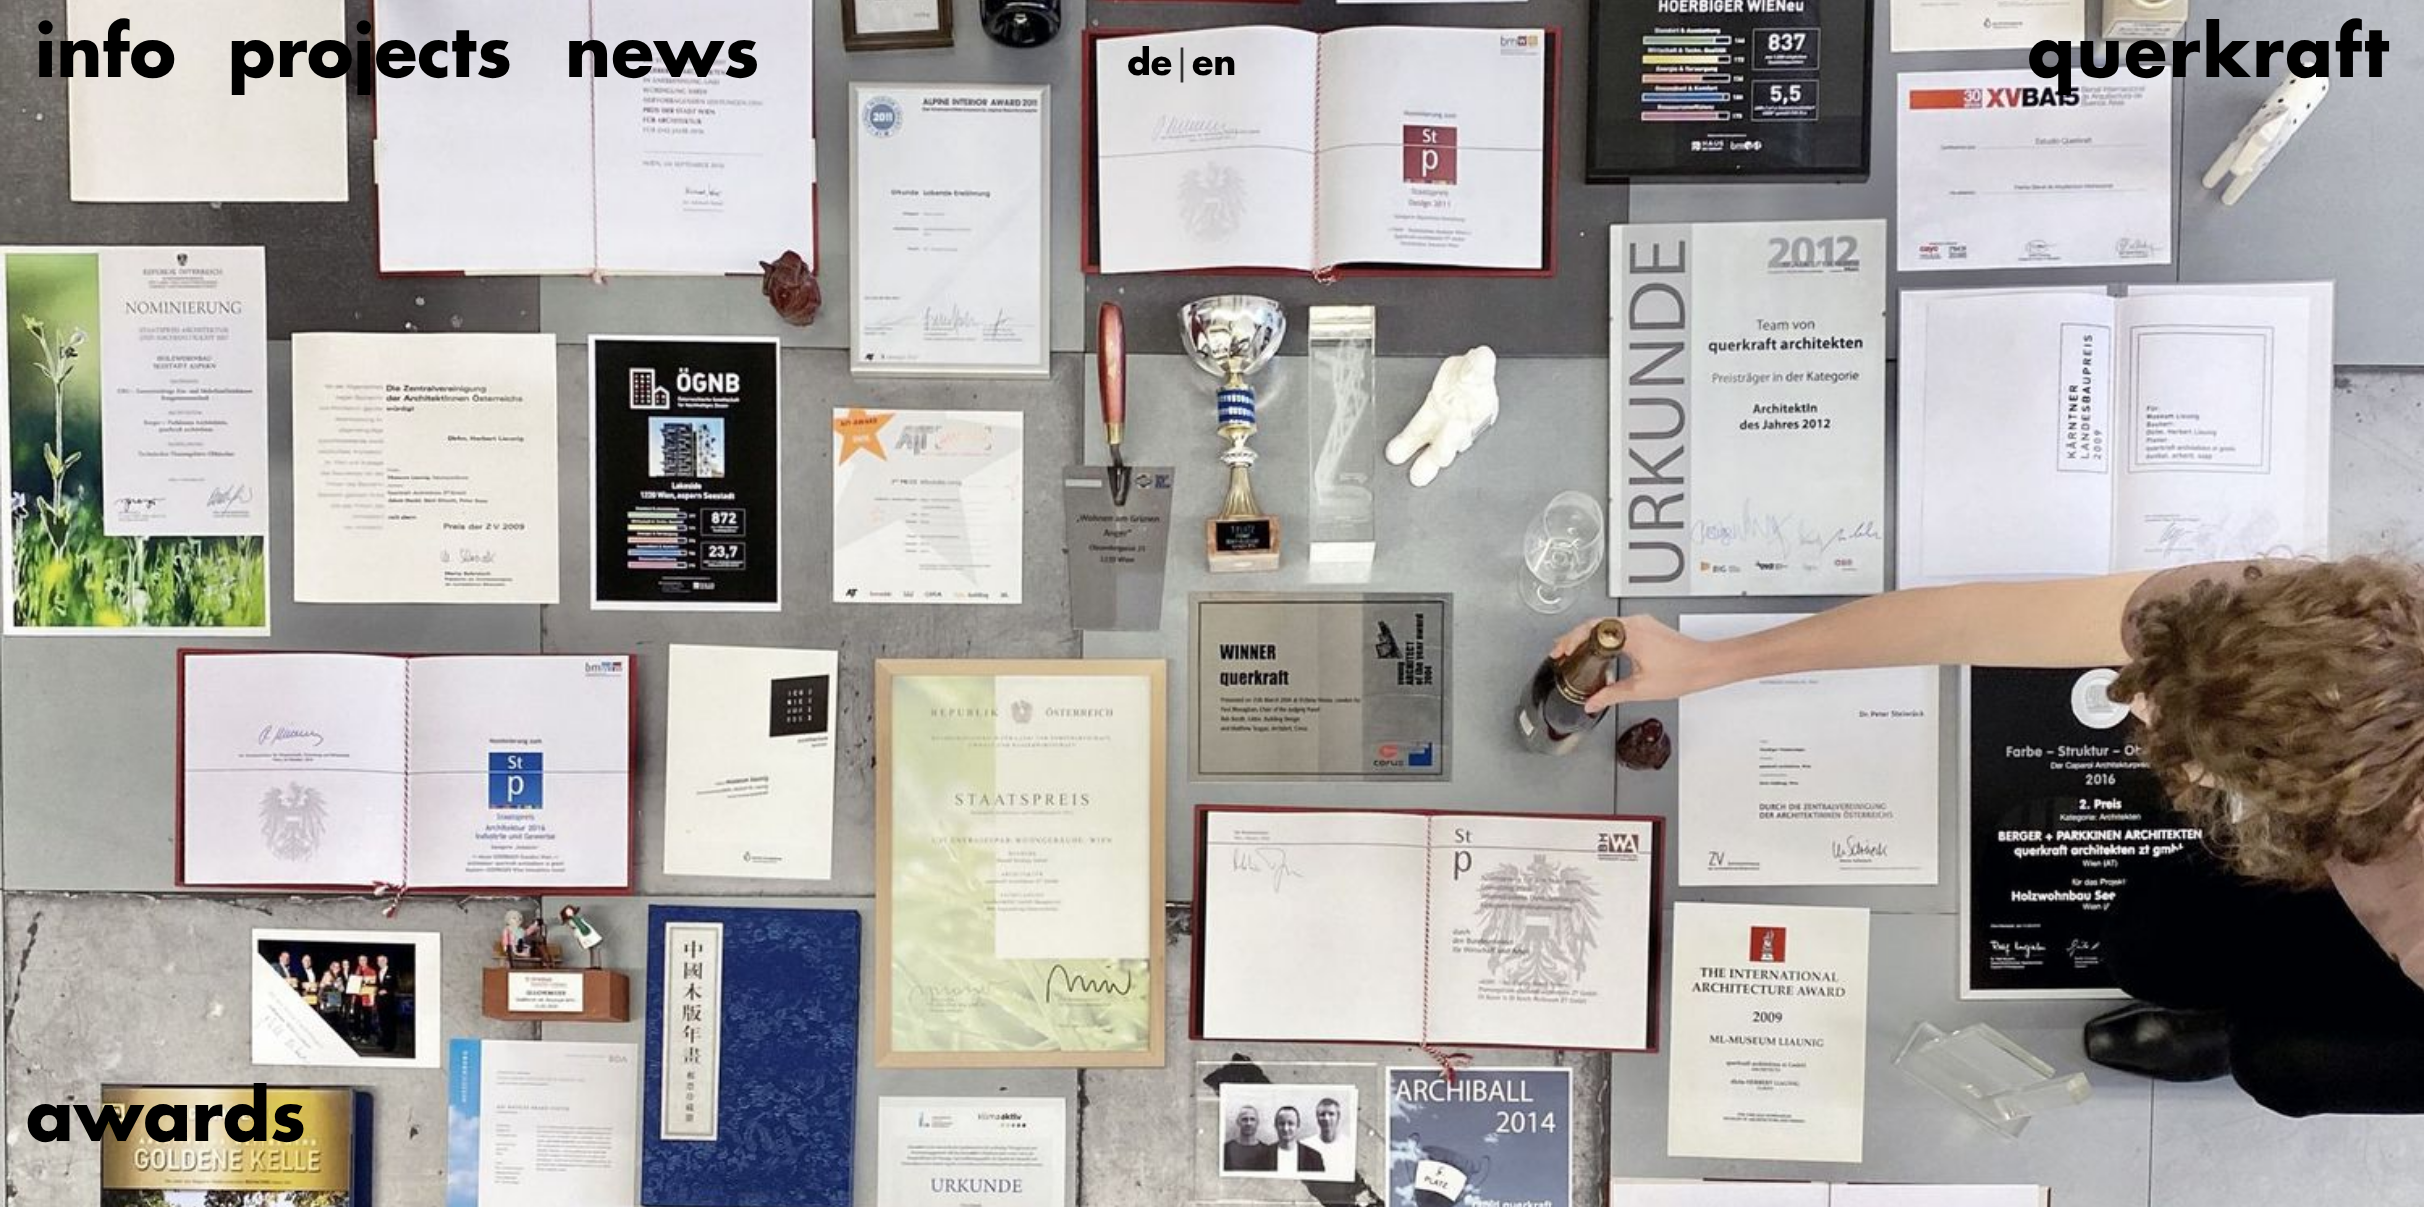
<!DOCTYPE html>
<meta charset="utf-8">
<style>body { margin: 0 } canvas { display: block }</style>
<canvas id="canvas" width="2424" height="1207"></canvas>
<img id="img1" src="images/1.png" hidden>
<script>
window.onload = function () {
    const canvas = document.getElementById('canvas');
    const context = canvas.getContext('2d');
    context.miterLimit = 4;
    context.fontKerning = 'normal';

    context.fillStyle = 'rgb(255, 255, 255)';
    context.fillRect(0, 0, 2424, 1207);
    context.drawImage(document.getElementById('img1'), 0, 0, 2424, 1207);
    context.font = '70px Futura';
    context.fillStyle = 'rgb(0, 0, 0)';
    context.fillText('info', 35, 77);
    context.fillText('projects', 228, 77);
    context.fillText('news', 565, 77);
    context.font = '35px Futura';
    context.fillText('de', 1127, 75);
    context.font = '35px "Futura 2"';
    context.fillStyle = 'rgb(51, 51, 51)';
    context.fillText('|', 1172, 75);
    context.font = '35px Futura';
    context.fillStyle = 'rgb(0, 0, 0)';
    context.fillText('en', 1192, 75);
    context.letterSpacing = '1.75px';
    context.font = '70px Futura';
    context.fillText('querkraft', 2027, 77);
    context.letterSpacing = '0px';
    context.fillText('awards', 26, 1141);
};
</script>
